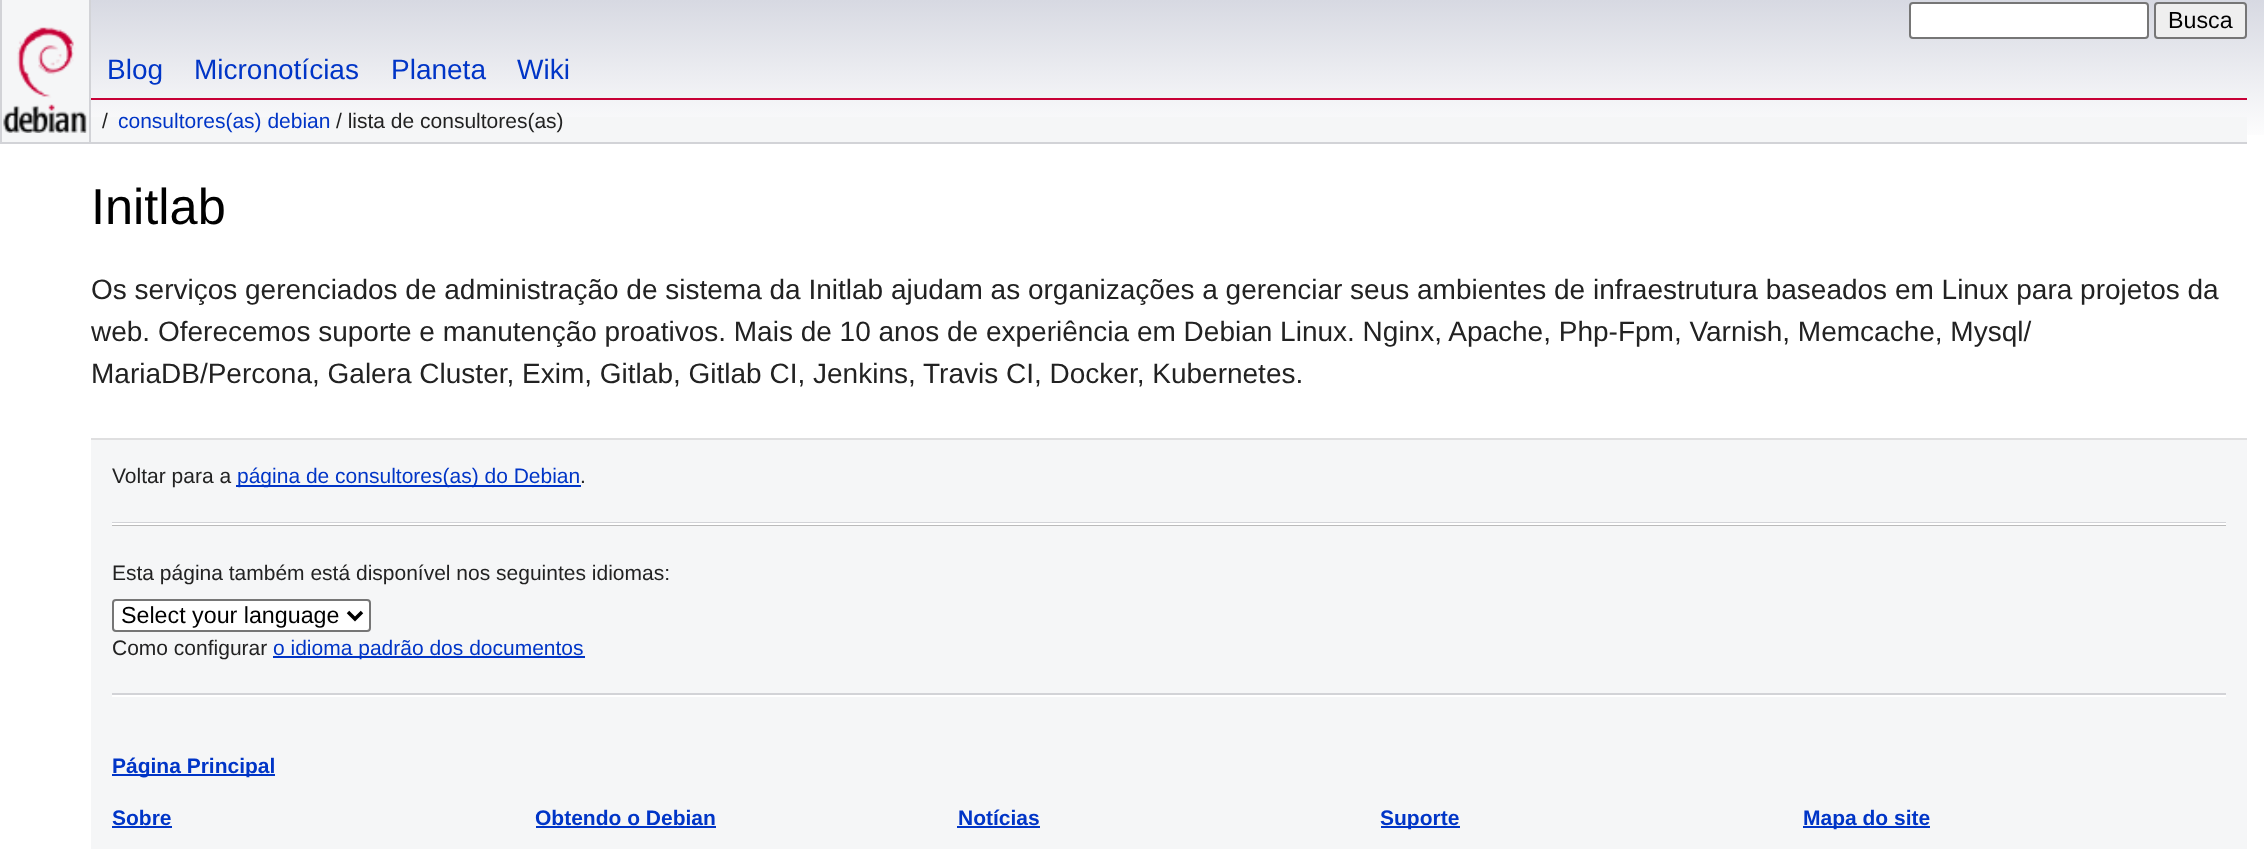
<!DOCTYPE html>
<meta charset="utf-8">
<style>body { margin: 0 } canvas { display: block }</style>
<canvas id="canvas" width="2264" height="849"></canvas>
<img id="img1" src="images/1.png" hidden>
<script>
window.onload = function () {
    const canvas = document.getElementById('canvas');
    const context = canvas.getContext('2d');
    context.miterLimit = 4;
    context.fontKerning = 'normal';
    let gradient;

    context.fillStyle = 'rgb(255, 255, 255)';
    context.fillRect(0, 0, 2264, 849);
    gradient = context.createLinearGradient(1132, 0, 1132, 144);
    gradient.addColorStop(0, 'rgb(215, 217, 226)');
    gradient.addColorStop(1, 'rgb(255, 255, 255)');
    context.fillStyle = gradient;
    context.fillRect(91, 0, 2173, 135);
    context.fillStyle = 'rgb(245, 246, 247)';
    context.fillRect(2, 0, 87, 142);
    context.fillStyle = 'rgb(210, 211, 215)';
    context.fillRect(89, 0, 2, 144);
    context.fillRect(0, 142, 91, 2);
    context.fillRect(0, 0, 2, 144);
    context.drawImage(document.getElementById('img1'), 3, 27, 84, 106);
    context.fillStyle = 'rgb(255, 255, 255)';
    context.beginPath();
    context.roundRect(1910, 3, 238, 35, 3);
    context.fill();
    context.strokeStyle = 'rgb(118, 118, 118)';
    context.lineWidth = 2;
    context.stroke();
    context.fillStyle = 'rgb(239, 239, 239)';
    context.beginPath();
    context.roundRect(2155, 3, 91, 35, 3);
    context.fill();
    context.stroke();
    context.fillStyle = 'rgb(199, 0, 54)';
    context.fillRect(91, 98, 2156, 2);
    context.fillStyle = 'rgb(245, 246, 247)';
    context.fillRect(91, 117, 2156, 25);
    context.fillStyle = 'rgb(210, 211, 215)';
    context.fillRect(91, 142, 2156, 2);
    context.fillStyle = 'rgb(245, 246, 247)';
    context.fillRect(91, 440, 2156, 409);
    context.fillStyle = 'rgb(223, 223, 224)';
    context.fillRect(91, 438, 2156, 2);
    context.fillStyle = 'rgb(0, 53, 199)';
    context.fillRect(236, 485, 345, 2);
    context.fillStyle = 'rgb(187, 187, 187)';
    context.fillRect(112, 525, 2114, 1);
    context.fillStyle = 'rgb(210, 211, 215)';
    context.fillRect(112, 522, 2114, 1);
    context.fillStyle = 'rgb(255, 255, 255)';
    context.fillRect(112, 523, 2114, 2);
    context.beginPath();
    context.roundRect(113, 600, 257, 31, 3);
    context.fill();
    context.stroke();
    context.beginPath();
    context.moveTo(348, 612);
    context.lineTo(355, 619);
    context.lineTo(362, 612);
    context.strokeStyle = 'rgb(0, 0, 0)';
    context.lineWidth = 3.5;
    context.stroke();
    context.fillStyle = 'rgb(0, 53, 199)';
    context.fillRect(273, 656, 312, 2);
    context.fillStyle = 'rgb(210, 211, 215)';
    context.fillRect(112, 693, 2114, 2);
    context.fillStyle = 'rgb(255, 255, 255)';
    context.fillRect(112, 695, 2114, 2);
    context.fillStyle = 'rgb(0, 53, 199)';
    context.fillRect(112, 774, 163, 2);
    context.fillRect(112, 826, 60, 2);
    context.fillRect(536, 826, 180, 2);
    context.fillRect(957, 826, 83, 2);
    context.fillRect(1381, 826, 79, 2);
    context.fillRect(1803, 826, 127, 2);
    context.font = '23.25px Liberation Sans';
    context.fillStyle = 'rgb(0, 0, 0)';
    context.fillText('Busca', 2168, 28);
    context.font = '28px Liberation Sans';
    context.fillStyle = 'rgb(0, 53, 199)';
    context.fillText('Blog', 107, 79);
    context.fillText('Micronotícias', 194, 79);
    context.fillText('Planeta', 391, 79);
    context.fillText('Wiki', 517, 79);
    context.font = '21px Liberation Sans';
    context.fillStyle = 'rgb(34, 34, 34)';
    context.fillText('/', 102, 128);
    context.fillStyle = 'rgb(0, 53, 199)';
    context.fillText('consultores(as) debian', 118, 128);
    context.fillStyle = 'rgb(34, 34, 34)';
    context.fillText('/ lista de consultores(as)', 336, 128);
    context.font = '50.5px Liberation Sans';
    context.fillStyle = 'rgb(0, 0, 0)';
    context.fillText('Initlab', 91, 224);
    context.font = '28px Liberation Sans';
    context.fillStyle = 'rgb(34, 34, 34)';
    context.fillText('Os serviços gerenciados de administração de sistema da Initlab ajudam as organizações a gerenciar seus ambientes de infraestrutura baseados em Linux para projetos da', 91, 299);
    context.fillText('web. Oferecemos suporte e manutenção proativos. Mais de 10 anos de experiência em Debian Linux. Nginx, Apache, Php-Fpm, Varnish, Memcache, Mysql/', 91, 341);
    context.fillText('MariaDB/Percona, Galera Cluster, Exim, Gitlab, Gitlab CI, Jenkins, Travis CI, Docker, Kubernetes.', 91, 383);
    context.font = '21px Liberation Sans';
    context.fillText('Voltar para a', 112, 483);
    context.fillStyle = 'rgb(0, 53, 199)';
    context.fillText('página de consultores(as) do Debian', 237, 483);
    context.fillStyle = 'rgb(34, 34, 34)';
    context.fillText('.', 580, 483);
    context.fillText('Esta página também está disponível nos seguintes idiomas:', 112, 580);
    context.font = '23.25px Liberation Sans';
    context.fillStyle = 'rgb(0, 0, 0)';
    context.fillText('Select your language', 121, 623);
    context.font = '21px Liberation Sans';
    context.fillStyle = 'rgb(34, 34, 34)';
    context.fillText('Como configurar', 112, 655);
    context.fillStyle = 'rgb(0, 53, 199)';
    context.fillText('o idioma padrão dos documentos', 273, 655);
    context.font = 'bold 21px Liberation Sans';
    context.fillText('Página Principal', 112, 773);
    context.fillText('Sobre', 112, 825);
    context.fillText('Obtendo o Debian', 535, 825);
    context.fillText('Notícias', 958, 825);
    context.fillText('Suporte', 1380, 825);
    context.fillText('Mapa do site', 1803, 825);
};
</script>
